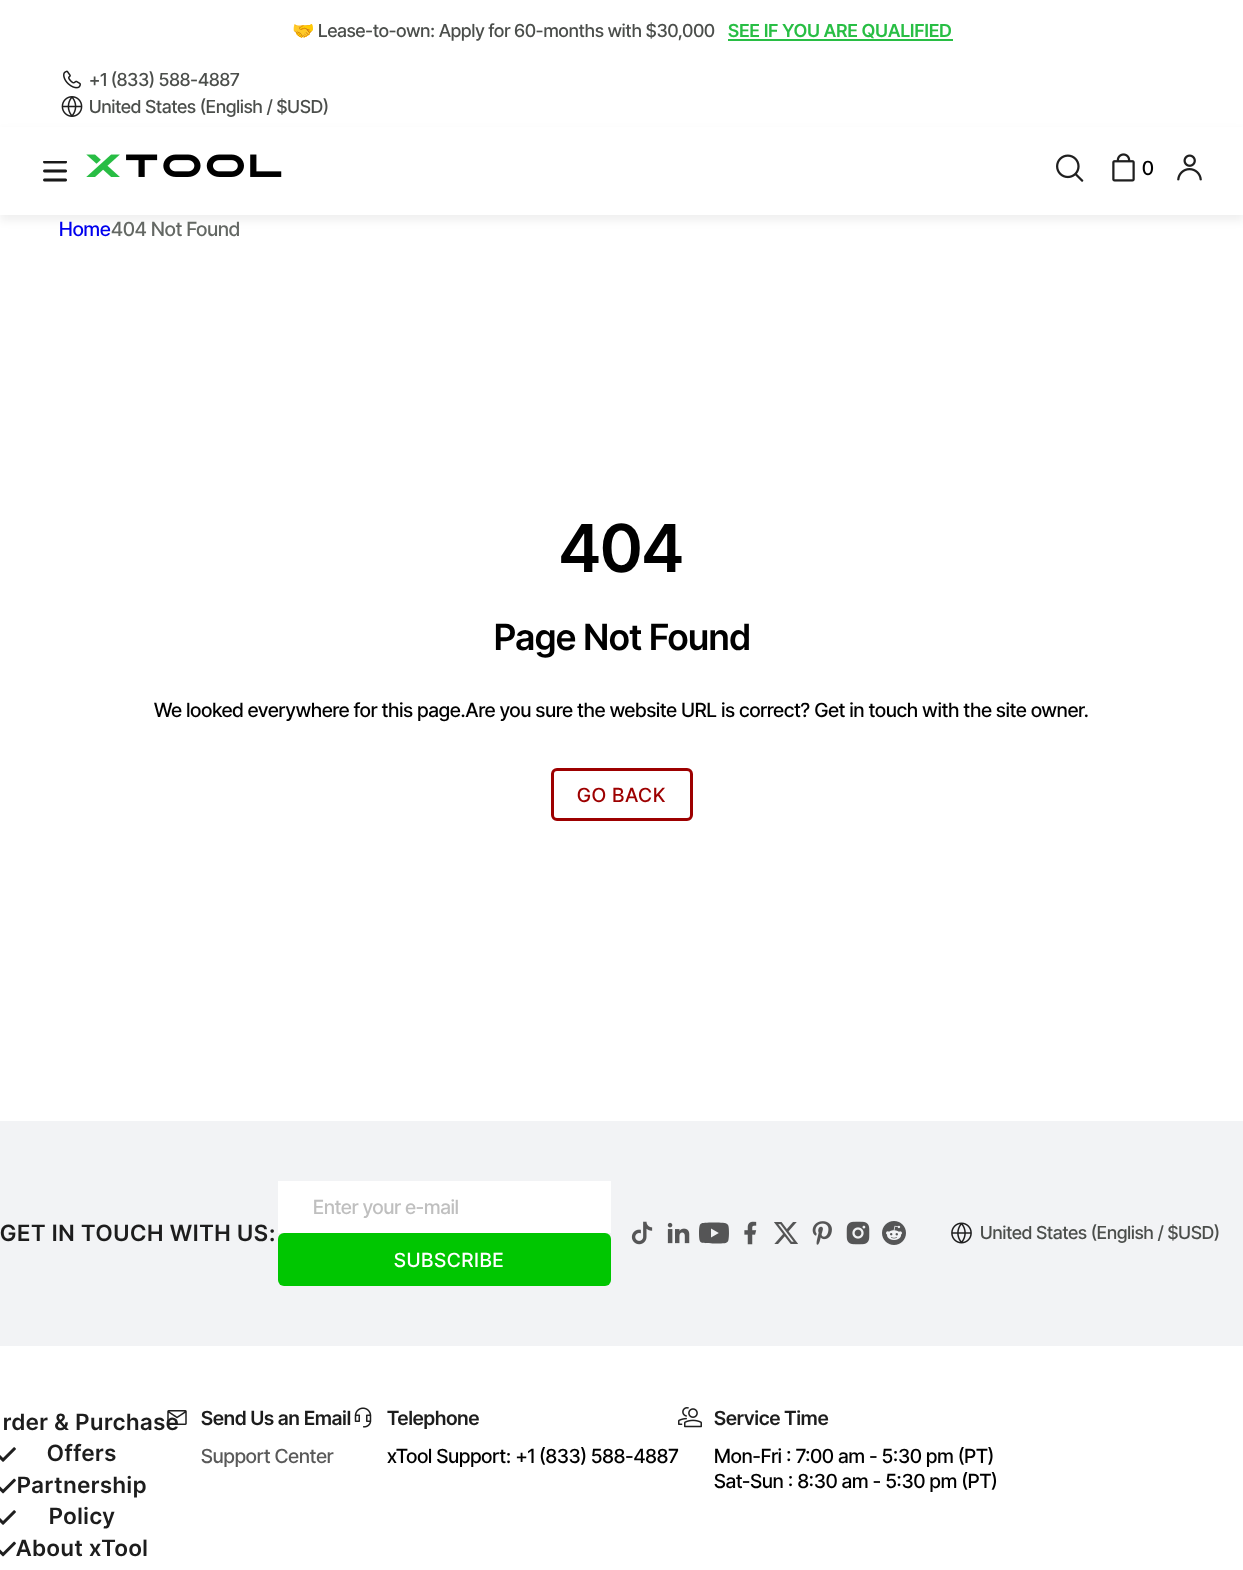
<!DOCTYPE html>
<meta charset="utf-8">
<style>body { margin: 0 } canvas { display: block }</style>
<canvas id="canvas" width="1243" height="1570"></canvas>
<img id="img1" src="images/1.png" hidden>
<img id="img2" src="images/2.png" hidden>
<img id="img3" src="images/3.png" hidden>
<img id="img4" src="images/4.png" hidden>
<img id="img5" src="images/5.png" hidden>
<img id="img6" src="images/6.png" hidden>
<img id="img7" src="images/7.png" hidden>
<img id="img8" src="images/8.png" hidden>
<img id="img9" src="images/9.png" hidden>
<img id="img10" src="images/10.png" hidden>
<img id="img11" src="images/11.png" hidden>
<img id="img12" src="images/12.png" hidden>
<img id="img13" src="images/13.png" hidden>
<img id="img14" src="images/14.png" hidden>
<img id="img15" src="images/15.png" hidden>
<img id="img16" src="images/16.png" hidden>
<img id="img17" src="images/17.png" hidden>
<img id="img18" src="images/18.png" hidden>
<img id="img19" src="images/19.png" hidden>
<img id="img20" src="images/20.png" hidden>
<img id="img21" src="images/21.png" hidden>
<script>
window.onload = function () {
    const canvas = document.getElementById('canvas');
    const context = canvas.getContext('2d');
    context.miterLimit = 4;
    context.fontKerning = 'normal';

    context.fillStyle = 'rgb(255, 255, 255)';
    context.fillRect(0, 0, 1243, 1570);
    context.fillStyle = 'rgb(40, 190, 68)';
    context.fillRect(728, 39, 225, 2);
    context.drawImage(document.getElementById('img1'), 63, 70, 18, 19);
    context.drawImage(document.getElementById('img2'), 61, 96, 22, 21);
    context.fillStyle = 'rgba(0, 0, 0, 0.06)';
    context.filter = 'blur(4.5px)';
    context.beginPath();
    context.rect(0, 131, 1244, 90);
    context.fill();
    context.filter = 'none';
    context.fillStyle = 'rgb(255, 255, 255)';
    context.fillRect(0, 127, 1243, 88);
    context.drawImage(document.getElementById('img3'), 43, 161, 24, 21);
    context.drawImage(document.getElementById('img4'), 86, 154, 196, 23);
    context.drawImage(document.getElementById('img5'), 1056, 154, 28, 28);
    context.drawImage(document.getElementById('img6'), 1112, 153, 23, 29);
    context.drawImage(document.getElementById('img7'), 1177, 154, 25, 27);
    context.beginPath();
    context.roundRect(552.5, 769.5, 139, 50, 4.5);
    context.strokeStyle = 'rgb(157, 0, 0)';
    context.lineWidth = 3;
    context.stroke();
    context.fillStyle = 'rgb(242, 243, 245)';
    context.fillRect(0, 1121, 1243, 225);
    context.fillStyle = 'rgb(255, 255, 255)';
    context.fillRect(278, 1181, 333, 52);
    context.fillStyle = 'rgb(0, 198, 1)';
    context.beginPath();
    context.roundRect(278, 1233, 333, 53, 6);
    context.fill();
    context.drawImage(document.getElementById('img8'), 631, 1221, 22, 24);
    context.drawImage(document.getElementById('img9'), 667, 1222, 23, 22);
    context.drawImage(document.getElementById('img10'), 699, 1222, 30, 22);
    context.drawImage(document.getElementById('img11'), 744, 1221, 13, 24);
    context.drawImage(document.getElementById('img12'), 774, 1222, 24, 22);
    context.drawImage(document.getElementById('img13'), 812, 1221, 20, 24);
    context.drawImage(document.getElementById('img14'), 846, 1221, 24, 24);
    context.drawImage(document.getElementById('img15'), 882, 1221, 24, 24);
    context.drawImage(document.getElementById('img16'), 951, 1222, 21, 22);
    context.drawImage(document.getElementById('img17'), 0, 1447, 16, 15);
    context.drawImage(document.getElementById('img18'), 0, 1478, 16, 16);
    context.drawImage(document.getElementById('img17'), 0, 1510, 16, 15);
    context.drawImage(document.getElementById('img18'), 0, 1541, 16, 16);
    context.drawImage(document.getElementById('img19'), 167, 1410, 20, 15);
    context.drawImage(document.getElementById('img20'), 354, 1407, 18, 21);
    context.drawImage(document.getElementById('img21'), 678, 1407, 24, 21);
    context.font = '18px Noto Color Emoji';
    context.fillStyle = 'rgb(75, 78, 75)';
    context.fillText('🤝', 292, 37);
    context.font = '500 18px Inter Tight';
    context.fillText('Lease-to-own: Apply for 60-months with $30,000', 318, 37);
    context.letterSpacing = '0.15px';
    context.font = '600 18px Inter Tight';
    context.fillStyle = 'rgb(40, 190, 68)';
    context.fillText('SEE IF YOU ARE QUALIFIED', 728, 37);
    context.letterSpacing = '0px';
    context.font = '500 18px Inter Tight';
    context.fillStyle = 'rgb(75, 78, 75)';
    context.fillText('+1 (833) 588-4887', 89, 86);
    context.fillText('United States (English / $USD)', 89, 113);
    context.font = '500 19.5px Inter Tight';
    context.fillStyle = 'rgb(0, 0, 0)';
    context.fillText('0', 1142, 175);
    context.fillStyle = 'rgb(0, 0, 238)';
    context.fillText('Home', 59, 236);
    context.fillStyle = 'rgb(100, 104, 100)';
    context.fillText('404 Not Found', 111, 236);
    context.font = '600 66px Inter Tight';
    context.fillStyle = 'rgb(0, 0, 0)';
    context.fillText('404', 559, 572);
    context.font = '600 36px Inter Tight';
    context.fillText('Page Not Found', 494, 650);
    context.font = '500 19.5px Inter Tight';
    context.fillText('We looked everywhere for this page.Are you sure the website URL is correct? Get in touch with the site owner.', 154, 717);
    context.letterSpacing = '1px';
    context.fillStyle = 'rgb(157, 0, 0)';
    context.fillText('GO BACK', 577, 802);
    context.letterSpacing = '1.1px';
    context.font = '600 22.5px Inter Tight';
    context.fillStyle = 'rgb(29, 29, 29)';
    context.fillText('GET IN TOUCH WITH US:', 0, 1241);
    context.letterSpacing = '0px';
    context.font = '500 19.5px Inter Tight';
    context.fillStyle = 'rgb(191, 191, 191)';
    context.fillText('Enter your e-mail', 313, 1214);
    context.letterSpacing = '1px';
    context.fillStyle = 'rgb(255, 255, 255)';
    context.fillText('SUBSCRIBE', 394, 1267);
    context.letterSpacing = '0px';
    context.font = '500 18px Inter Tight';
    context.fillStyle = 'rgb(75, 78, 75)';
    context.fillText('United States (English / $USD)', 980, 1239);
    context.letterSpacing = '1.1px';
    context.font = '600 22.5px Inter Tight';
    context.fillStyle = 'rgb(29, 29, 29)';
    context.fillText('rder & Purchase', 3, 1430);
    context.fillText('Offers', 47, 1461);
    context.fillText('Partnership', 17, 1493);
    context.fillText('Policy', 49, 1524);
    context.fillText('About xTool', 16, 1556);
    context.letterSpacing = '0px';
    context.font = '600 19.5px Inter Tight';
    context.fillText('Send Us an Email', 201, 1425);
    context.font = '500 19.5px Inter Tight';
    context.fillStyle = 'rgb(89, 89, 89)';
    context.fillText('Support Center', 201, 1463);
    context.font = '600 19.5px Inter Tight';
    context.fillStyle = 'rgb(29, 29, 29)';
    context.fillText('Telephone', 387, 1425);
    context.font = '500 19.5px Inter Tight';
    context.fillStyle = 'rgb(0, 0, 0)';
    context.fillText('xTool Support: +1 (833) 588-4887', 387, 1463);
    context.font = '600 19.5px Inter Tight';
    context.fillStyle = 'rgb(29, 29, 29)';
    context.fillText('Service Time', 714, 1425);
    context.font = '500 19.5px Inter Tight';
    context.fillStyle = 'rgb(0, 0, 0)';
    context.fillText('Mon-Fri : 7:00 am - 5:30 pm (PT)', 714, 1463);
    context.fillText('Sat-Sun : 8:30 am - 5:30 pm (PT)', 714, 1488);
};
</script>
